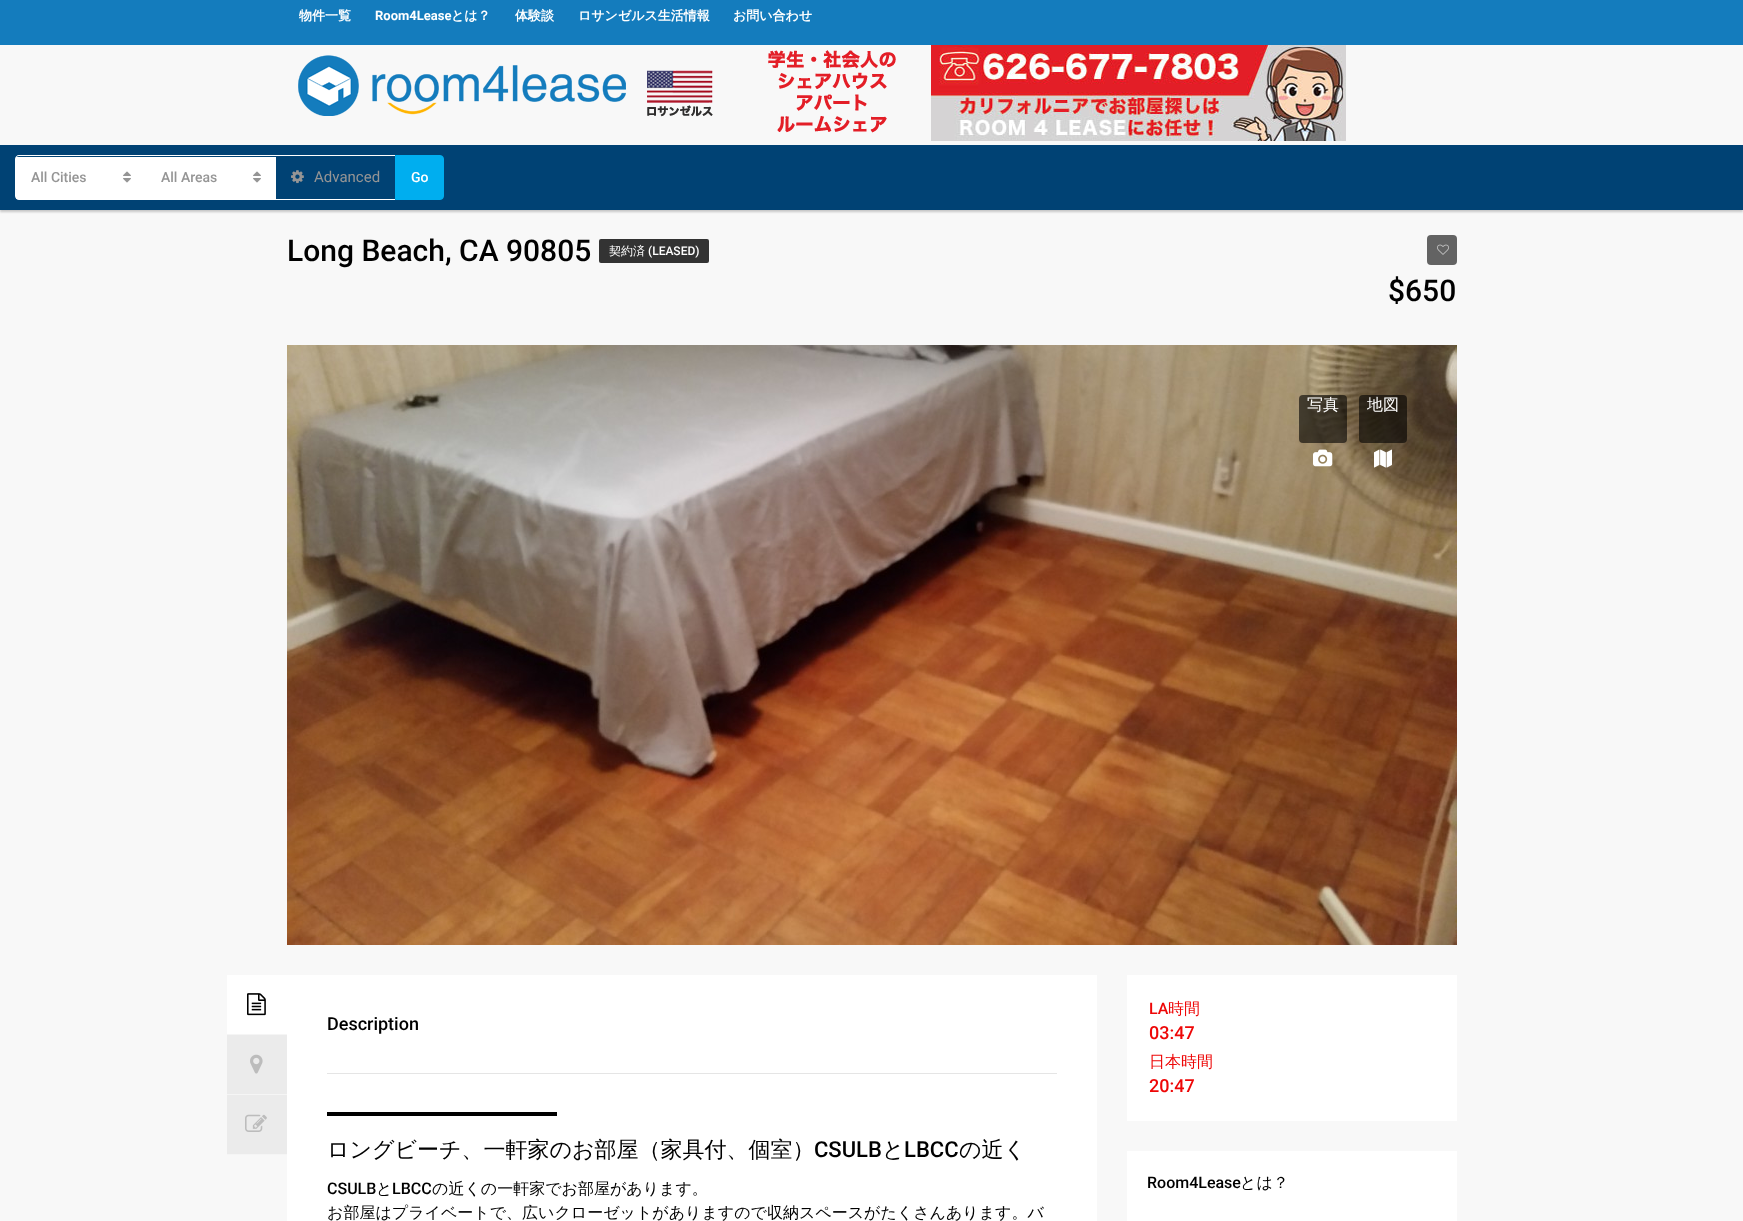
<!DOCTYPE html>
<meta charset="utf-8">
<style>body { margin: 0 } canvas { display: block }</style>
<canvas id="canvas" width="1743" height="1221"></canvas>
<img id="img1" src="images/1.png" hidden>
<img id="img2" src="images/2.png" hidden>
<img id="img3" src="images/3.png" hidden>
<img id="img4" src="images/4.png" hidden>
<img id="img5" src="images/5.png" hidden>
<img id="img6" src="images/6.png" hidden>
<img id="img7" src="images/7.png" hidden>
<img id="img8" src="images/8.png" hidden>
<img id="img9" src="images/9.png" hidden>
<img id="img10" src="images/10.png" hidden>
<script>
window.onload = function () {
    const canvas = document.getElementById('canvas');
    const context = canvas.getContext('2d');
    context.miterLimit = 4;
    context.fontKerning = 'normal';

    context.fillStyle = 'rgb(248, 248, 248)';
    context.fillRect(0, 0, 1743, 1221);
    context.fillStyle = 'rgb(20, 124, 189)';
    context.fillRect(0, 0, 1743, 45);
    context.drawImage(document.getElementById('img1'), 298, 45, 1048, 96);
    context.fillStyle = 'rgba(0, 0, 0, 0.2)';
    context.filter = 'blur(1px)';
    context.beginPath();
    context.rect(0, 147, 1743, 65);
    context.fill();
    context.filter = 'none';
    context.fillStyle = 'rgb(0, 66, 116)';
    context.fillRect(0, 145, 1743, 65);
    context.fillStyle = 'rgb(255, 255, 255)';
    context.beginPath();
    context.moveTo(19, 155);
    context.lineTo(395, 155);
    context.lineTo(395, 200);
    context.lineTo(19, 200);
    context.bezierCurveTo(17, 200, 15, 198, 15, 196);
    context.lineTo(15, 159);
    context.bezierCurveTo(15, 157, 17, 155, 19, 155);
    context.closePath();
    context.moveTo(19, 156);
    context.lineTo(395, 156);
    context.lineTo(395, 199);
    context.lineTo(19, 199);
    context.bezierCurveTo(17, 199, 16, 198, 16, 196);
    context.lineTo(16, 159);
    context.bezierCurveTo(16, 157, 17, 156, 19, 156);
    context.closePath();
    context.fill('evenodd');
    context.fillRect(16, 157, 260, 42);
    context.drawImage(document.getElementById('img2'), 123, 171, 8, 12);
    context.drawImage(document.getElementById('img2'), 253, 171, 8, 12);
    context.drawImage(document.getElementById('img3'), 291, 170, 13, 14);
    context.fillStyle = 'rgb(0, 174, 239)';
    context.beginPath();
    context.roundRect(395.5, 155.5, 48, 44, [0, 3.5, 3.5, 0]);
    context.fill();
    context.strokeStyle = 'rgb(0, 174, 239)';
    context.stroke();
    context.fillStyle = 'rgb(51, 51, 51)';
    context.beginPath();
    context.roundRect(599, 239, 110, 24, 2);
    context.fill();
    context.fillStyle = 'rgb(99, 99, 99)';
    context.beginPath();
    context.roundRect(1427, 235, 30, 30, 4);
    context.fill();
    context.drawImage(document.getElementById('img4'), 1437, 244, 12, 11);
    context.drawImage(document.getElementById('img5'), 287, 345, 1170, 600);
    context.fillStyle = 'rgba(0, 0, 0, 0.6)';
    context.beginPath();
    context.roundRect(1299, 395, 48, 48, 4);
    context.fill();
    context.drawImage(document.getElementById('img6'), 1313, 449, 20, 18);
    context.beginPath();
    context.roundRect(1359, 395, 48, 48, 4);
    context.fill();
    context.drawImage(document.getElementById('img7'), 1374, 449, 18, 19);
    context.fillStyle = 'rgb(255, 255, 255)';
    context.fillRect(227, 975, 60, 59);
    context.fillStyle = 'rgb(245, 245, 245)';
    context.fillRect(227, 1034, 60, 1);
    context.drawImage(document.getElementById('img8'), 247, 993, 19, 23);
    context.fillStyle = 'rgb(235, 235, 235)';
    context.fillRect(227, 1035, 60, 59);
    context.fillStyle = 'rgb(245, 245, 245)';
    context.fillRect(227, 1094, 60, 1);
    context.drawImage(document.getElementById('img9'), 250, 1054, 13, 20);
    context.fillStyle = 'rgb(235, 235, 235)';
    context.fillRect(227, 1095, 60, 59);
    context.fillStyle = 'rgb(245, 245, 245)';
    context.fillRect(227, 1154, 60, 1);
    context.drawImage(document.getElementById('img10'), 245, 1114, 22, 18);
    context.fillStyle = 'rgb(255, 255, 255)';
    context.fillRect(287, 975, 810, 246);
    context.fillStyle = 'rgb(229, 229, 229)';
    context.fillRect(327, 1073, 730, 1);
    context.fillStyle = 'rgb(0, 0, 0)';
    context.fillRect(327, 1112, 230, 4);
    context.fillStyle = 'rgb(255, 255, 255)';
    context.fillRect(1127, 975, 330, 146);
    context.fillRect(1127, 1151, 330, 70);
    context.font = 'bold 13px WenQuanYi Zen Hei';
    context.fillText('物件一覧', 299, 20);
    context.font = 'bold 13px Roboto';
    context.fillText('Room4Lease', 375, 20);
    context.font = 'bold 13px WenQuanYi Zen Hei';
    context.fillText('とは？', 451, 20);
    context.fillText('体験談', 515, 20);
    context.fillText('ロサンゼルス生活情報', 578, 20);
    context.fillText('お問い合わせ', 733, 20);
    context.font = '500 14px Roboto';
    context.fillStyle = 'rgb(149, 149, 149)';
    context.fillText('All Cities', 31, 182);
    context.fillText('All Areas', 161, 182);
    context.font = '15px Roboto';
    context.fillText('Advanced', 314, 182);
    context.font = '500 14px Roboto';
    context.fillStyle = 'rgb(255, 255, 255)';
    context.fillText('Go', 411, 182);
    context.font = '500 30px Roboto';
    context.fillStyle = 'rgb(0, 0, 0)';
    context.fillText('Long Beach, CA 90805', 287, 261);
    context.font = '500 12px WenQuanYi Zen Hei';
    context.fillStyle = 'rgb(255, 255, 255)';
    context.fillText('契約済', 609, 255);
    context.font = '500 12px Roboto';
    context.fillText('(LEASED)', 648, 255);
    context.font = '500 30px Roboto';
    context.fillStyle = 'rgb(0, 0, 0)';
    context.fillText('$650', 1388, 301);
    context.font = '500 16px WenQuanYi Zen Hei';
    context.fillStyle = 'rgb(255, 255, 255)';
    context.fillText('写真', 1307, 410);
    context.fillText('地図', 1367, 410);
    context.font = '500 18px Roboto';
    context.fillStyle = 'rgb(0, 0, 0)';
    context.fillText('Description', 327, 1030);
    context.font = '500 22px WenQuanYi Zen Hei';
    context.fillText('ロングビーチ、一軒家のお部屋（家具付、個室）', 327, 1157);
    context.font = '500 22px Roboto';
    context.fillText('CSULB', 814, 1157);
    context.font = '500 22px WenQuanYi Zen Hei';
    context.fillText('と', 882, 1157);
    context.font = '500 22px Roboto';
    context.fillText('LBCC', 904, 1157);
    context.font = '500 22px WenQuanYi Zen Hei';
    context.fillText('の近く', 959, 1157);
    context.font = '500 16px Roboto';
    context.fillText('CSULB', 327, 1194);
    context.font = '500 16px WenQuanYi Zen Hei';
    context.fillText('と', 376, 1194);
    context.font = '500 16px Roboto';
    context.fillText('LBCC', 392, 1194);
    context.font = '500 16px WenQuanYi Zen Hei';
    context.fillText('の近くの一軒家でお部屋があります。', 432, 1194);
    context.fillText('お部屋はプライベートで、広いクローゼットがありますので収納スペースがたくさんあります。バ', 327, 1218);
    context.font = '500 16px Roboto';
    context.fillStyle = 'rgb(238, 7, 7)';
    context.fillText('LA', 1149, 1014);
    context.font = '500 16px WenQuanYi Zen Hei';
    context.fillText('時間', 1168, 1014);
    context.font = '500 18px Roboto';
    context.fillText('03:47', 1149, 1039);
    context.font = '500 16px WenQuanYi Zen Hei';
    context.fillText('日本時間', 1149, 1067);
    context.font = '500 18px Roboto';
    context.fillText('20:47', 1149, 1092);
    context.font = '500 16px Roboto';
    context.fillStyle = 'rgb(0, 0, 0)';
    context.fillText('Room4Lease', 1147, 1188);
    context.font = '500 16px WenQuanYi Zen Hei';
    context.fillText('とは？', 1240, 1188);
};
</script>
